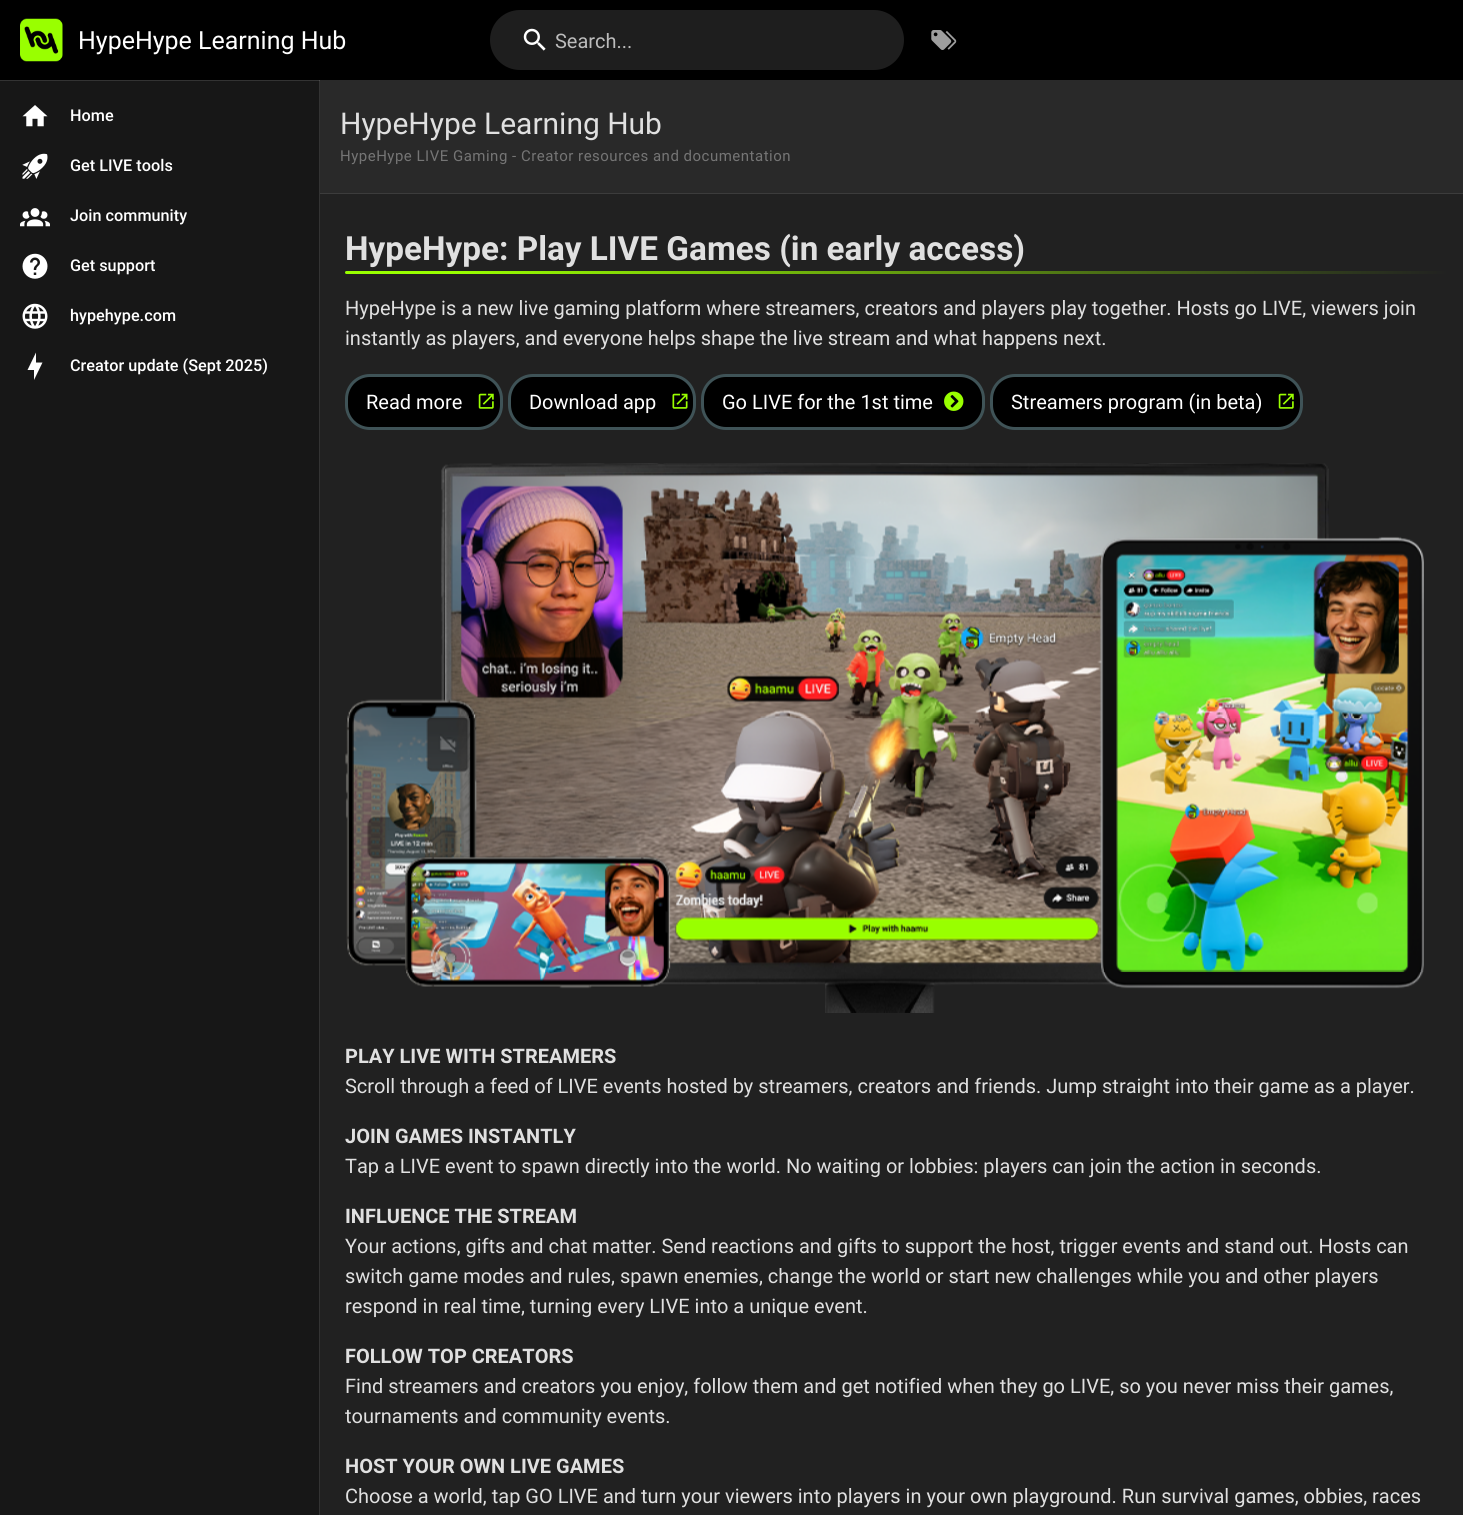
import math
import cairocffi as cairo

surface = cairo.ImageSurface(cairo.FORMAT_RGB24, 1463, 1515)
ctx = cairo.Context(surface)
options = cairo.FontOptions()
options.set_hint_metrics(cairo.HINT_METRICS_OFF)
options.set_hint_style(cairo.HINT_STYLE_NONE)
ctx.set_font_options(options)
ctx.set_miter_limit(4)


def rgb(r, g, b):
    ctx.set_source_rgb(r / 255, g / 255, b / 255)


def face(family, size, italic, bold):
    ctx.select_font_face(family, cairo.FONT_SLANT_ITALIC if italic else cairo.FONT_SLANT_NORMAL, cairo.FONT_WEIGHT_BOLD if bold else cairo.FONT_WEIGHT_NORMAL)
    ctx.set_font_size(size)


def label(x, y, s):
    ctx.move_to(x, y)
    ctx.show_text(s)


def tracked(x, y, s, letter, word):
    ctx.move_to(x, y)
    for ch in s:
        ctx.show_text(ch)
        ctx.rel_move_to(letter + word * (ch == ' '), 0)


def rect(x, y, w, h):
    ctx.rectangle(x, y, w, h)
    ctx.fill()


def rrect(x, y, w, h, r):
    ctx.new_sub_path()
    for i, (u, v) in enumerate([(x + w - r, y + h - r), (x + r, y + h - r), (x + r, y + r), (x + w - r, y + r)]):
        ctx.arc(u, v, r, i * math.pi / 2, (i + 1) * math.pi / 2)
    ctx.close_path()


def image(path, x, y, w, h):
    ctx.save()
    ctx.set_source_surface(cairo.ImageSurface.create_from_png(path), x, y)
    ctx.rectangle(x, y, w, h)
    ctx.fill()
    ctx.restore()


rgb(33, 33, 33)
ctx.paint()
rgb(0, 0, 0)
rect(0, 0, 1463, 80)
image('image0.png', 20, 18, 43, 44)
face('Roboto', 25, 0, 0)
rgb(255, 255, 255)
label(78, 49, 'HypeHype Learning Hub')
rgb(30, 30, 30)
rrect(490, 10, 414, 60, 30)
ctx.fill()
image('image1.png', 523, 28, 23, 23)
face('Roboto', 20, 0, 0)
rgb(188, 188, 188)
label(555, 48, 'Search...')
image('image2.png', 931, 30, 26, 20)
rgb(23, 23, 23)
rect(0, 81, 319, 1434)
rgb(51, 51, 51)
rect(319, 80, 1, 1435)
rect(0, 80, 320, 1)
rgb(75, 75, 75)
rect(319, 80, 1, 1)
image('image3.png', 22, 105, 26, 22)
face('Roboto Medium', 16.25, 0, 0)
rgb(255, 255, 255)
label(70, 121, 'Home')
image('image4.png', 22, 153, 26, 26)
label(70, 171, 'Get LIVE tools')
image('image5.png', 20, 208, 30, 19)
label(70, 221, 'Join community')
image('image6.png', 22, 253, 26, 26)
label(70, 271, 'Get support')
image('image7.png', 22, 303, 26, 26)
label(70, 321, 'hypehype.com')
ctx.new_path()
ctx.move_to(34, 370)
ctx.line_to(27.5, 370)
ctx.line_to(36, 352.5)
ctx.line_to(36, 362.5)
ctx.line_to(42.5, 362.5)
ctx.line_to(34, 380)
ctx.close_path()
ctx.fill()
label(70, 371, 'Creator update (Sept 2025)')
rgb(41, 41, 41)
rect(320, 80, 1143, 113)
face('Roboto', 30, 0, 0)
rgb(224, 224, 224)
label(340, 134, 'HypeHype Learning Hub')
face('Roboto', 15, 0, 0)
rgb(117, 117, 117)
tracked(340, 161, 'HypeHype LIVE Gaming - Creator resources and documentation', 0.5, 0)
rgb(60, 60, 60)
rect(320, 193, 1143, 1)
face('Roboto', 33.3, 0, 1)
rgb(224, 224, 224)
label(345, 260, 'HypeHype: Play LIVE Games (in early access)')
gradient = cairo.LinearGradient(345, 273, 1449, 272)
gradient.add_color_stop_rgba(0.1, 0.6, 1, 0, 1)
gradient.add_color_stop_rgba(1, 0.129, 0.129, 0.129, 1)
ctx.set_source(gradient)
rrect(345, 271, 1104, 3, 1.5)
ctx.fill()
face('Roboto', 20, 0, 0)
rgb(224, 224, 224)
label(345, 315, 'HypeHype is a new live gaming platform where streamers, creators and players play together. Hosts go LIVE, viewers join')
label(345, 345, 'instantly as players, and everyone helps shape the live stream and what happens next.')
rgb(0, 0, 0)
rrect(346.5, 375.5, 155, 53, 23.5)
ctx.fill_preserve()
rgb(63, 83, 87)
ctx.set_line_width(3)
ctx.stroke()
rgb(255, 255, 255)
label(366, 409, 'Read more')
image('image8.png', 478, 393, 16, 16)
rgb(0, 0, 0)
rrect(509.5, 375.5, 185, 53, 23.5)
ctx.fill_preserve()
rgb(63, 83, 87)
ctx.stroke()
rgb(255, 255, 255)
label(529, 409, 'Download app')
image('image9.png', 672, 393, 16, 16)
rgb(0, 0, 0)
rrect(702.5, 375.5, 281, 53, 23.5)
ctx.fill_preserve()
rgb(63, 83, 87)
ctx.stroke()
rgb(255, 255, 255)
label(722, 409, 'Go LIVE for the 1st time')
image('image10.png', 944, 391, 20, 20)
rgb(0, 0, 0)
rrect(991.5, 375.5, 310, 53, 23.5)
ctx.fill_preserve()
rgb(63, 83, 87)
ctx.stroke()
rgb(255, 255, 255)
label(1011, 409, 'Streamers program (in beta)')
image('image8.png', 1278, 393, 16, 16)
image('image11.png', 345, 463, 1079, 550)
face('Roboto', 20, 0, 1)
rgb(224, 224, 224)
label(345, 1063, 'PLAY LIVE WITH STREAMERS')
face('Roboto', 20, 0, 0)
label(345, 1093, 'Scroll through a feed of LIVE events hosted by streamers, creators and friends. Jump straight into their game as a player.')
face('Roboto', 20, 0, 1)
label(345, 1143, 'JOIN GAMES INSTANTLY')
face('Roboto', 20, 0, 0)
label(345, 1173, 'Tap a LIVE event to spawn directly into the world. No waiting or lobbies: players can join the action in seconds.')
face('Roboto', 20, 0, 1)
label(345, 1223, 'INFLUENCE THE STREAM')
face('Roboto', 20, 0, 0)
label(345, 1253, 'Your actions, gifts and chat matter. Send reactions and gifts to support the host, trigger events and stand out. Hosts can')
label(345, 1283, 'switch game modes and rules, spawn enemies, change the world or start new challenges while you and other players')
label(345, 1313, 'respond in real time, turning every LIVE into a unique event.')
face('Roboto', 20, 0, 1)
label(345, 1363, 'FOLLOW TOP CREATORS')
face('Roboto', 20, 0, 0)
label(345, 1393, 'Find streamers and creators you enjoy, follow them and get notified when they go LIVE, so you never miss their games,')
label(345, 1423, 'tournaments and community events.')
face('Roboto', 20, 0, 1)
label(345, 1473, 'HOST YOUR OWN LIVE GAMES')
face('Roboto', 20, 0, 0)
label(345, 1503, 'Choose a world, tap GO LIVE and turn your viewers into players in your own playground. Run survival games, obbies, races')
surface.write_to_png('render.png')
